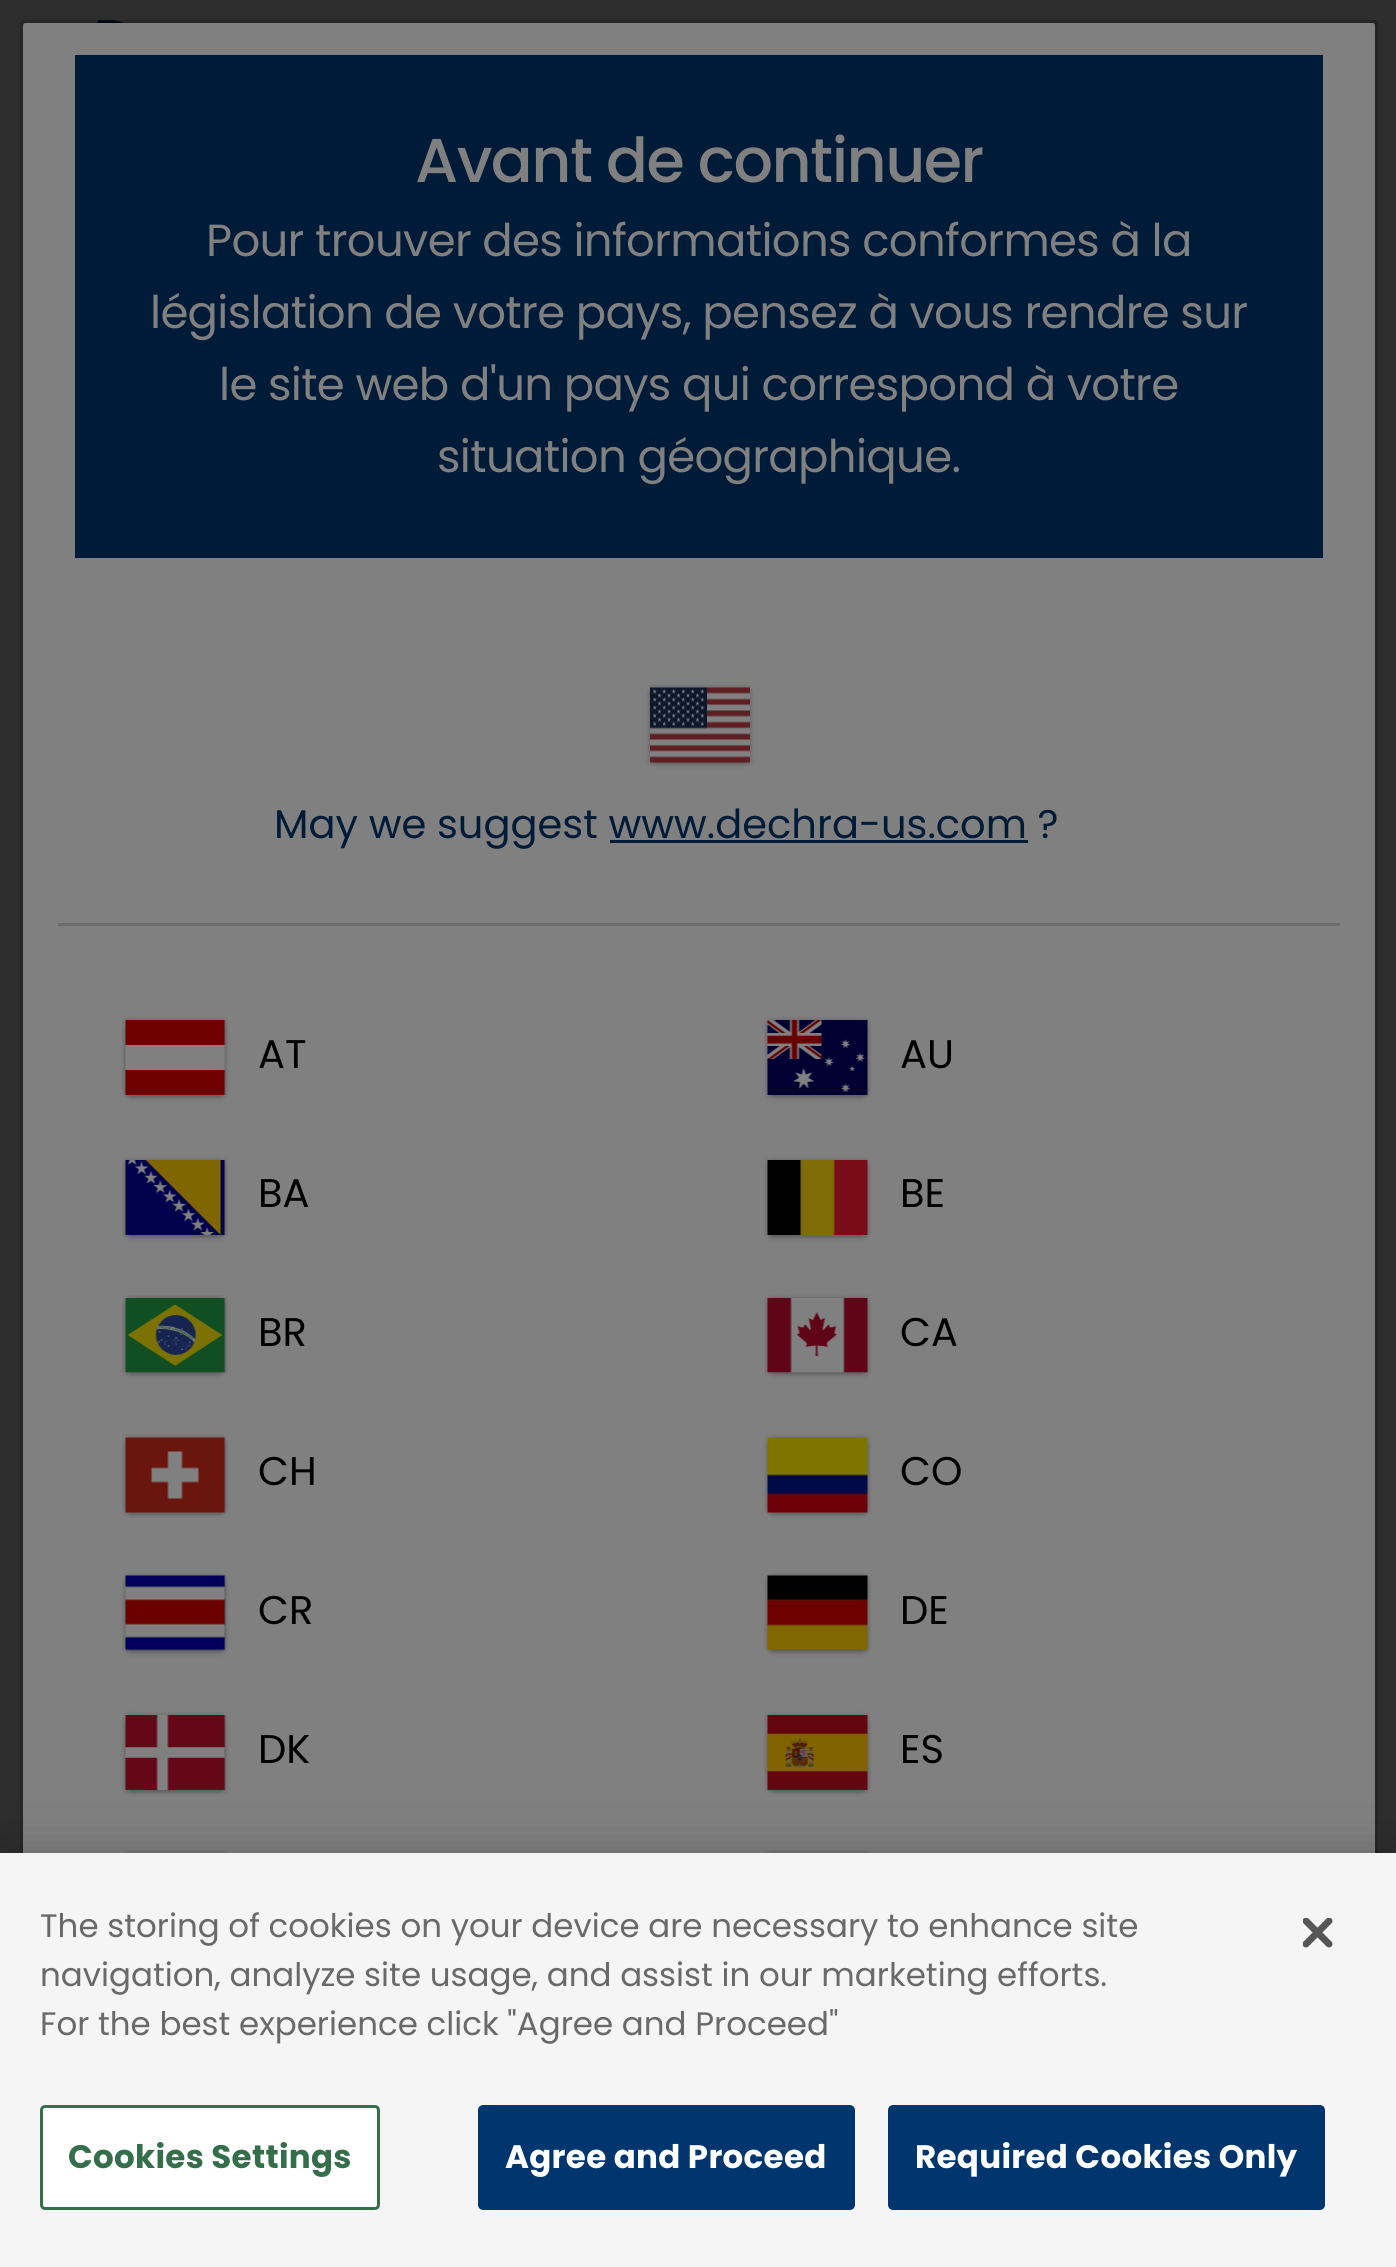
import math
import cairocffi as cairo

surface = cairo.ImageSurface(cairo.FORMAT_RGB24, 1396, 2267)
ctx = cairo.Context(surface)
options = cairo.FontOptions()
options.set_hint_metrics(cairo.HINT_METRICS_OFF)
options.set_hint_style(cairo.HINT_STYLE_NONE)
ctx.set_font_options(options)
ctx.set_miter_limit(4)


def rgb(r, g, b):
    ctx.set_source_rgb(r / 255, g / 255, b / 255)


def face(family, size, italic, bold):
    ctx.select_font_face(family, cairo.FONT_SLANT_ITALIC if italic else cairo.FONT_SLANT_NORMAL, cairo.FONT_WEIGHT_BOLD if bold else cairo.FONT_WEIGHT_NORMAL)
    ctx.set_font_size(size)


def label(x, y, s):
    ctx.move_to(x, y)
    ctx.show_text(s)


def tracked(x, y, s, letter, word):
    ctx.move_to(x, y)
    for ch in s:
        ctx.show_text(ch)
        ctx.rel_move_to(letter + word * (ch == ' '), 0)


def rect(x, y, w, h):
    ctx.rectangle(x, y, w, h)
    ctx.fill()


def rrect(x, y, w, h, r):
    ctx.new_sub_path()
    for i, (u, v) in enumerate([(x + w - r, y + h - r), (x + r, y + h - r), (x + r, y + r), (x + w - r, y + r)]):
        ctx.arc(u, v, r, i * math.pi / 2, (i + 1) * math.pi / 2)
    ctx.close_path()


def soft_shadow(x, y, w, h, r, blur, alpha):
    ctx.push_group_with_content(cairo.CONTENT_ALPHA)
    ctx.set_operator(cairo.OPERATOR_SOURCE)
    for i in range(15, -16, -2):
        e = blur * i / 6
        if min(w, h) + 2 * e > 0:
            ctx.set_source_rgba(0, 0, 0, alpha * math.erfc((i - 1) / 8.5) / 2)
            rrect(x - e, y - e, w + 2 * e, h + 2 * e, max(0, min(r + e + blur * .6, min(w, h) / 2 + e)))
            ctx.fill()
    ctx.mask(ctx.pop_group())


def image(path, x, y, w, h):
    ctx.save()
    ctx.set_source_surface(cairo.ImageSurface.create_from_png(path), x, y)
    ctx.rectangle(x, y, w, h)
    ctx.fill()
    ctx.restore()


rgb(45, 45, 45)
ctx.paint()
image('image0.png', 97, 20, 27, 3)
rgb(128, 128, 128)
ctx.new_path()
ctx.move_to(25.5, 23)
ctx.line_to(1372.5, 23)
ctx.curve_to(1374, 23, 1375, 24, 1375, 25.5)
ctx.line_to(1375, 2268)
ctx.line_to(23, 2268)
ctx.line_to(23, 25.5)
ctx.curve_to(23, 24, 24, 23, 25.5, 23)
ctx.close_path()
ctx.fill()
rrect(21.5, 21.5, 1355, 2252, 3.5)
ctx.set_source_rgba(0, 0, 0, 0.15)
ctx.set_line_width(3)
ctx.stroke()
rgb(0, 27, 55)
rect(75, 55, 1248, 503)
face('Poppins Medium', 61.9, 0, 0)
rgb(128, 128, 128)
tracked(415, 182, 'Avant de continuer', -1.5, 0)
face('Poppins', 45, 0, 0)
tracked(206, 256, 'Pour trouver des informations conformes à la', -0.68, 0)
tracked(150, 328, 'législation de votre pays, pensez à vous rendre sur', -0.68, 0)
tracked(219, 400, 'le site web d\'un pays qui correspond à votre', -0.68, 0)
tracked(437, 472, 'situation géographique.', -0.68, 0)
rgb(0, 0, 0)
soft_shadow(655, 695, 90, 65, 0, 4, 1)
image('image1.png', 647, 684, 106, 82)
face('Poppins', 40, 0, 0)
rgb(0, 27, 55)
label(274, 838, 'May we suggest www.dechra-us.com ?')
rect(610, 840, 418, 3)
rgb(109, 109, 109)
rect(58, 923, 1282, 3)
rgb(0, 0, 0)
soft_shadow(130, 1028, 90, 65, 0, 4, 1)
image('image2.png', 122, 1016, 107, 82)
rgb(0, 0, 0)
label(258, 1068, 'AT')
rgb(0, 0, 0)
soft_shadow(773, 1028, 90, 65, 0, 4, 1)
image('image3.png', 764, 1016, 107, 82)
rgb(0, 0, 0)
label(900, 1068, 'AU')
rgb(0, 0, 0)
soft_shadow(130, 1168, 90, 65, 0, 4, 1)
image('image4.png', 122, 1156, 106, 82)
rgb(0, 0, 0)
label(258, 1207, 'BA')
rgb(0, 0, 0)
soft_shadow(773, 1168, 90, 65, 0, 4, 1)
image('image5.png', 764, 1156, 107, 82)
rgb(0, 0, 0)
label(900, 1207, 'BE')
rgb(0, 0, 0)
soft_shadow(130, 1305, 90, 65, 0, 4, 1)
image('image6.png', 122, 1295, 106, 81)
rgb(0, 0, 0)
label(258, 1346, 'BR')
rgb(0, 0, 0)
soft_shadow(773, 1305, 90, 65, 0, 4, 1)
image('image7.png', 764, 1294, 107, 82)
rgb(0, 0, 0)
label(900, 1346, 'CA')
rgb(0, 0, 0)
soft_shadow(130, 1445, 90, 65, 0, 4, 1)
image('image8.png', 122, 1434, 106, 82)
rgb(0, 0, 0)
label(258, 1485, 'CH')
rgb(0, 0, 0)
soft_shadow(773, 1445, 90, 65, 0, 4, 1)
image('image9.png', 764, 1434, 107, 82)
rgb(0, 0, 0)
label(900, 1485, 'CO')
rgb(0, 0, 0)
soft_shadow(130, 1583, 90, 65, 0, 4, 1)
image('image10.png', 122, 1572, 107, 81)
rgb(0, 0, 0)
label(258, 1624, 'CR')
rgb(0, 0, 0)
soft_shadow(773, 1583, 90, 65, 0, 4, 1)
image('image11.png', 764, 1572, 107, 81)
rgb(0, 0, 0)
label(900, 1624, 'DE')
rgb(0, 0, 0)
soft_shadow(130, 1723, 90, 65, 0, 4, 1)
image('image12.png', 122, 1711, 107, 82)
rgb(0, 0, 0)
label(258, 1763, 'DK')
rgb(0, 0, 0)
soft_shadow(773, 1723, 90, 65, 0, 4, 1)
image('image13.png', 764, 1711, 107, 82)
rgb(0, 0, 0)
label(900, 1763, 'ES')
image('image14.png', 122, 1850, 106, 3)
image('image15.png', 764, 1849, 107, 4)
rgb(0, 0, 0)
soft_shadow(0, 1853, 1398, 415, 0, 22.5, 0.2)
rgb(245, 245, 245)
rect(0, 1853, 1396, 414)
face('Poppins', 32.5, 0, 0)
rgb(105, 105, 105)
label(40, 1937, 'The storing of cookies on your device are necessary to enhance site')
label(40, 1986, 'navigation, analyze site usage, and assist in our marketing efforts.')
label(40, 2035, 'For the best experience click "Agree and Proceed"')
rgb(255, 255, 255)
rrect(41.5, 2106.5, 337, 102, 3.5)
ctx.fill_preserve()
rgb(52, 110, 74)
ctx.stroke()
face('Poppins', 32.5, 0, 1)
tracked(68, 2168, 'Cookies Settings', 0.3, 0)
rgb(0, 54, 109)
rrect(479.5, 2106.5, 374, 102, 3.5)
ctx.fill_preserve()
ctx.stroke()
rgb(255, 255, 255)
tracked(505, 2168, 'Agree and Proceed', 0.3, 0)
rgb(0, 54, 109)
rrect(889.5, 2106.5, 434, 102, 3.5)
ctx.fill_preserve()
ctx.stroke()
rgb(255, 255, 255)
tracked(915, 2168, 'Required Cookies Only', 0.3, 0)
image('image16.png', 1303, 1918, 30, 30)
surface.write_to_png('render.png')
